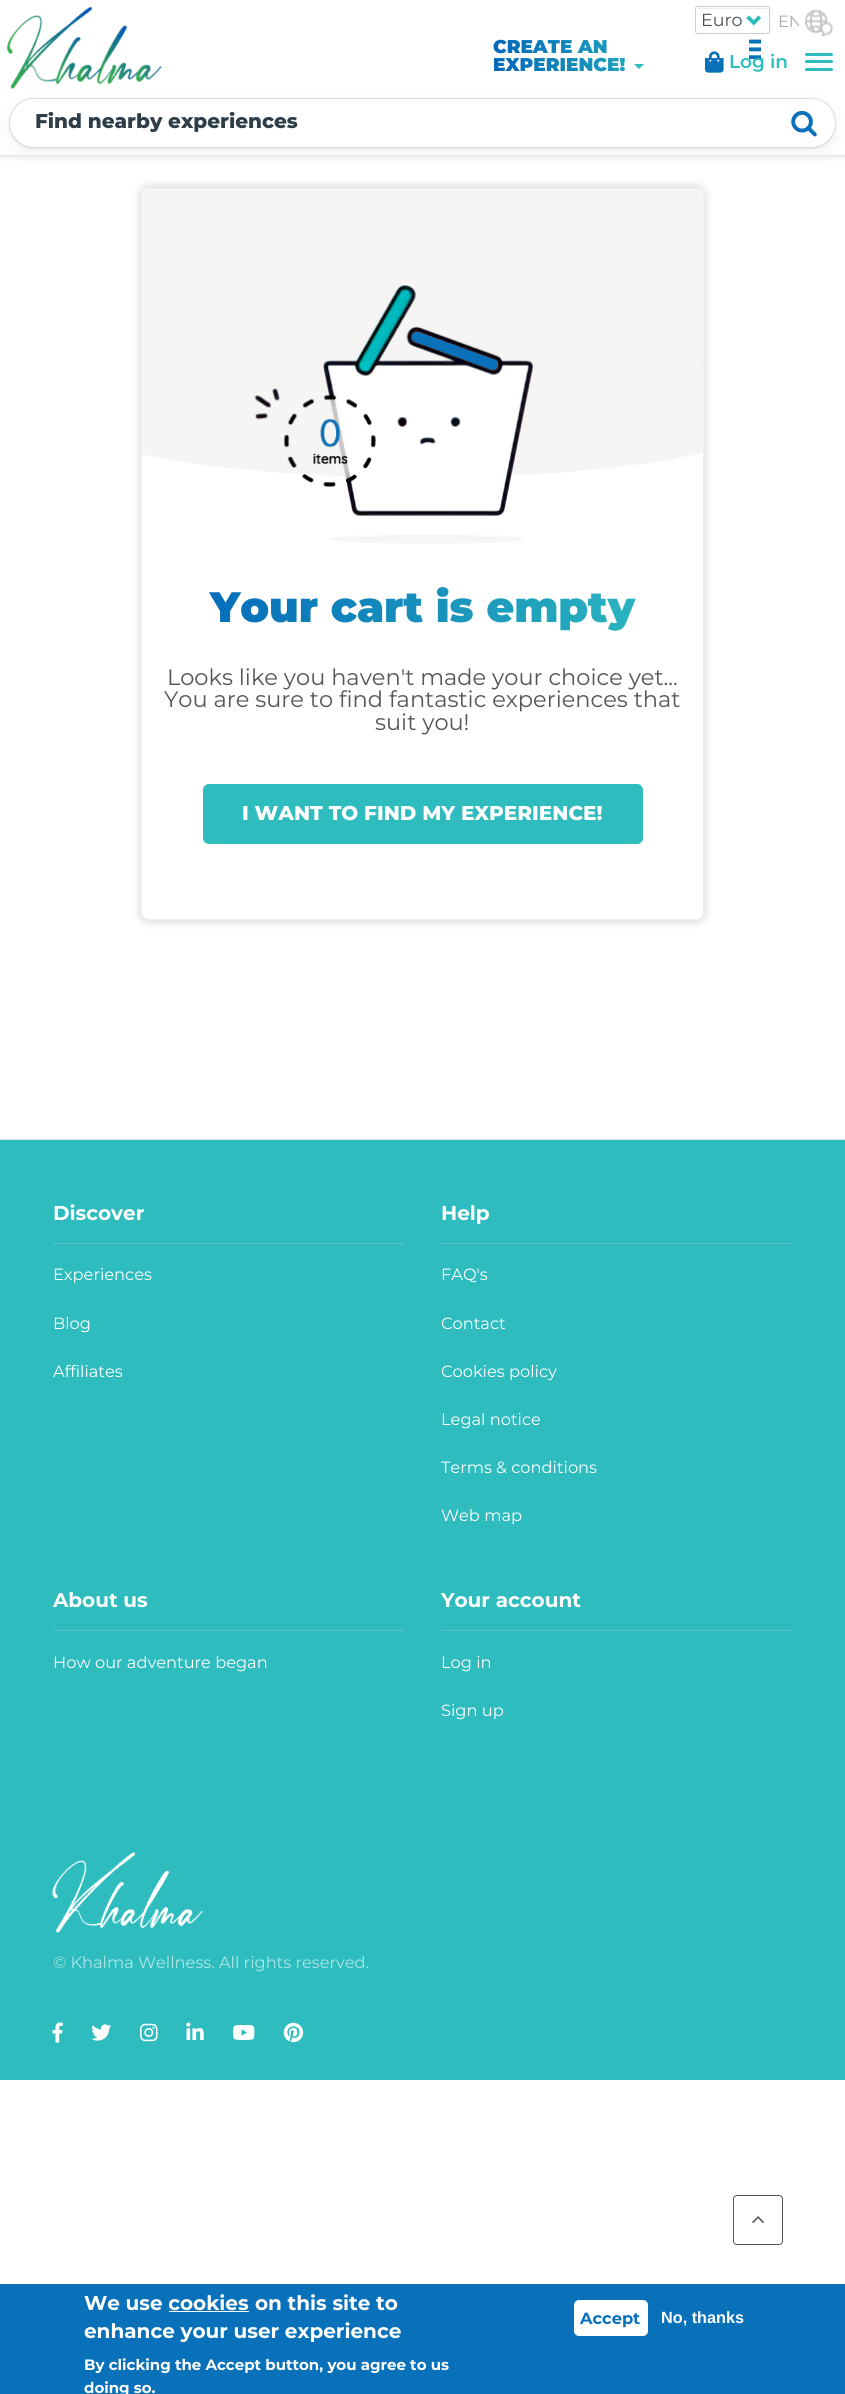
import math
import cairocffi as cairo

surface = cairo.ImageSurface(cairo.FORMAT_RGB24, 845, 2394)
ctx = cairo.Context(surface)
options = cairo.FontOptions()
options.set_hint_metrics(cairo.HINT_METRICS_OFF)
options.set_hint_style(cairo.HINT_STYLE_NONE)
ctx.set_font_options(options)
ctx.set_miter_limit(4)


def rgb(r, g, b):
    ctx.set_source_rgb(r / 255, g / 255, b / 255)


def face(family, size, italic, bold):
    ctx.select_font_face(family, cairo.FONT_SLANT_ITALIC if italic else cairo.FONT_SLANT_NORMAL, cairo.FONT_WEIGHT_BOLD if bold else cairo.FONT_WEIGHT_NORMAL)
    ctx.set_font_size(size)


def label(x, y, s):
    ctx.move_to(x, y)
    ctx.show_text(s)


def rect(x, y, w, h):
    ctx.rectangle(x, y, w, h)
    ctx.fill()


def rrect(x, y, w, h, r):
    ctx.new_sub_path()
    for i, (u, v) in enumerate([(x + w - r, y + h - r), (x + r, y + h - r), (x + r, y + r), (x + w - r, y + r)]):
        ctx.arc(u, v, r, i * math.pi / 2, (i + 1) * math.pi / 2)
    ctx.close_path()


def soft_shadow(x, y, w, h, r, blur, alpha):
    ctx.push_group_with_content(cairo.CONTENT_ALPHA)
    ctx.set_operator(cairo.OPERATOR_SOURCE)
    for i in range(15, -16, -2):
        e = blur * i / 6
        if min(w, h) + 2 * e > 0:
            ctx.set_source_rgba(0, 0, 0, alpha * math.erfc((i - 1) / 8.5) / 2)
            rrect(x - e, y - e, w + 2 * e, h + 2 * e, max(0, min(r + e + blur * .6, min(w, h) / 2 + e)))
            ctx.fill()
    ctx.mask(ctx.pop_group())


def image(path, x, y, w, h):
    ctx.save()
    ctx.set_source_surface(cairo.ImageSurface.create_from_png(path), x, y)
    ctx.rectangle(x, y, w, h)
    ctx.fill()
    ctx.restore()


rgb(255, 255, 255)
ctx.paint()
ctx.save()
ctx.rectangle(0, 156, 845, 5)
ctx.clip()
rgb(0, 0, 0)
soft_shadow(0, 0, 845, 156, 0, 5, 0.12)
ctx.restore()
rgb(231, 231, 231)
rect(0, 155, 845, 1)
rgb(236, 236, 236)
ctx.new_path()
ctx.move_to(698, 9)
ctx.line_to(768, 9)
ctx.line_to(769, 10)
ctx.curve_to(769, 9, 769, 8, 768, 8)
ctx.line_to(697, 8)
ctx.line_to(696, 10)
ctx.curve_to(696, 9, 697, 9, 698, 9)
ctx.close_path()
ctx.fill()
rrect(695.5, 6.5, 74, 27, 2)
rgb(201, 204, 215)
ctx.set_line_width(1)
ctx.stroke()
face('Montserrat', 17.5, 0, 0)
rgb(73, 80, 87)
label(701, 26, 'Euro')
image('image0.png', 746, 15, 15, 11)
ctx.save()
ctx.new_path()
ctx.move_to(784, 9)
ctx.line_to(799, 9)
ctx.line_to(799, 33)
ctx.line_to(784, 33)
ctx.curve_to(780.5, 33, 778, 30.5, 778, 27)
ctx.line_to(778, 15)
ctx.curve_to(778, 11.5, 780.5, 9, 784, 9)
ctx.close_path()
ctx.clip()
face('Montserrat', 16.25, 0, 0)
rgb(171, 171, 171)
label(778, 27, 'EN')
ctx.restore()
image('image1.png', 805, 9, 28, 28)
face('Montserrat Black', 18.5, 0, 0)
gradient = cairo.LinearGradient(486, 44, 686, 44)
gradient.add_color_stop_rgba(0, 0, 0.392, 0.725, 1)
gradient.add_color_stop_rgba(1, 0.18, 0.737, 0.749, 1)
ctx.set_source(gradient)
label(493, 53, 'CREATE AN')
label(493, 71, 'EXPERIENCE!')
rgb(46, 188, 191)
ctx.new_path()
ctx.move_to(634, 64)
ctx.line_to(644, 64)
ctx.line_to(639, 69)
ctx.close_path()
ctx.fill()
image('image2.png', 705, 51, 19, 22)
image('image3.png', 749, 39, 12, 21)
image('image4.png', 6, 7, 156, 82)
face('Montserrat SemiBold', 18.5, 0, 0)
label(729, 68, 'Log in')
rgb(0, 0, 0)
soft_shadow(9, 103, 827, 50, 25, 7.5, 0.05)
soft_shadow(9, 99, 827, 50, 25, 1, 0.08)
rgb(255, 255, 255)
rrect(9.5, 98.5, 826, 49, 24.5)
ctx.fill_preserve()
rgb(221, 221, 221)
ctx.stroke()
face('Montserrat ExtraBold', 20, 0, 0)
rgb(46, 62, 72)
label(35, 128, 'Find nearby experiences')
image('image5.png', 791, 110, 26, 27)
rgb(46, 188, 191)
rrect(805, 53, 28, 3, 1.5)
ctx.fill()
rrect(805, 60, 28, 3, 1.5)
ctx.fill()
rrect(805, 68, 28, 3, 1.5)
ctx.fill()
rgb(0, 0, 0)
soft_shadow(139, 185, 567, 738, 10, 4, 0.13)
rgb(255, 255, 255)
rrect(141.5, 188.5, 562, 731, 7.5)
ctx.fill_preserve()
rgb(238, 238, 238)
ctx.stroke()
image('image6.png', 142, 189, 561, 355)
face('Montserrat Black', 42.5, 0, 0)
gradient = cairo.LinearGradient(155, 607, 690, 607)
gradient.add_color_stop_rgba(0, 0, 0.392, 0.725, 1)
gradient.add_color_stop_rgba(1, 0.18, 0.737, 0.749, 1)
ctx.set_source(gradient)
label(210, 622, 'Your cart is empty')
face('Montserrat', 22.5, 0, 0)
rgb(85, 85, 85)
label(167, 685, 'Looks like you haven\'t made your choice yet...')
label(164, 707, 'You are sure to find fantastic experiences that')
label(375, 730, 'suit you!')
rgb(46, 188, 191)
rrect(203, 784, 440, 60, 6)
ctx.fill()
face('Montserrat ExtraBold', 20, 0, 0)
rgb(255, 255, 255)
label(242, 820, 'I WANT TO FIND MY EXPERIENCE!')
rgb(46, 188, 191)
rect(0, 1140, 845, 940)
rgb(229, 229, 229)
rect(0, 1139, 845, 1)
rgb(90, 195, 198)
rect(53, 1243, 351, 1)
face('Montserrat', 20, 0, 1)
rgb(255, 255, 255)
label(53, 1220, 'Discover')
face('Montserrat', 16.25, 0, 0)
label(53, 1280, 'Experiences')
label(53, 1329, 'Blog')
label(53, 1377, 'Affiliates')
rgb(90, 195, 198)
rect(441, 1243, 352, 1)
face('Montserrat', 20, 0, 1)
rgb(255, 255, 255)
label(441, 1220, 'Help')
face('Montserrat', 16.25, 0, 0)
label(441, 1280, 'FAQ\'s')
label(441, 1329, 'Contact')
label(441, 1377, 'Cookies policy')
label(441, 1425, 'Legal notice')
label(441, 1473, 'Terms & conditions')
label(441, 1521, 'Web map')
rgb(90, 195, 198)
rect(53, 1630, 351, 1)
face('Montserrat', 20, 0, 1)
rgb(255, 255, 255)
label(53, 1607, 'About us')
face('Montserrat', 16.25, 0, 0)
label(53, 1668, 'How our adventure began')
rgb(90, 195, 198)
rect(441, 1630, 352, 1)
face('Montserrat', 20, 0, 1)
rgb(255, 255, 255)
label(441, 1607, 'Your account')
face('Montserrat', 16.25, 0, 0)
label(441, 1668, 'Log in')
label(441, 1716, 'Sign up')
image('image7.png', 52, 1852, 151, 81)
rgb(173, 229, 230)
label(53, 1968, '© Khalma Wellness. All rights reserved.')
image('image8.png', 52, 2022, 11, 21)
image('image9.png', 91, 2024, 21, 17)
image('image10.png', 140, 2023, 18, 19)
image('image11.png', 186, 2022, 18, 18)
image('image12.png', 233, 2025, 22, 15)
image('image13.png', 283, 2022, 21, 21)
rrect(733.5, 2195.5, 49, 49, 3.5)
rgb(86, 86, 86)
ctx.stroke()
image('image14.png', 752, 2216, 12, 7)
rgb(8, 113, 186)
rect(0, 2284, 845, 110)
face('Montserrat', 20, 0, 1)
rgb(255, 255, 255)
label(84, 2310, 'We use cookies')
label(255, 2310, 'on this site to')
rect(169, 2311, 80, 1)
label(84, 2338, 'enhance your user experience')
face('Montserrat', 15, 0, 1)
label(84, 2370, 'By clicking the Accept button, you agree to us')
label(84, 2393, 'doing so.')
rrect(574, 2300, 74, 36, 5)
ctx.fill()
face('Montserrat', 16.25, 0, 1)
rgb(8, 113, 186)
label(580, 2324, 'Accept')
face('Liberation Sans', 16.25, 0, 1)
rgb(255, 255, 255)
label(661, 2323, 'No, thanks')
surface.write_to_png('render.png')
